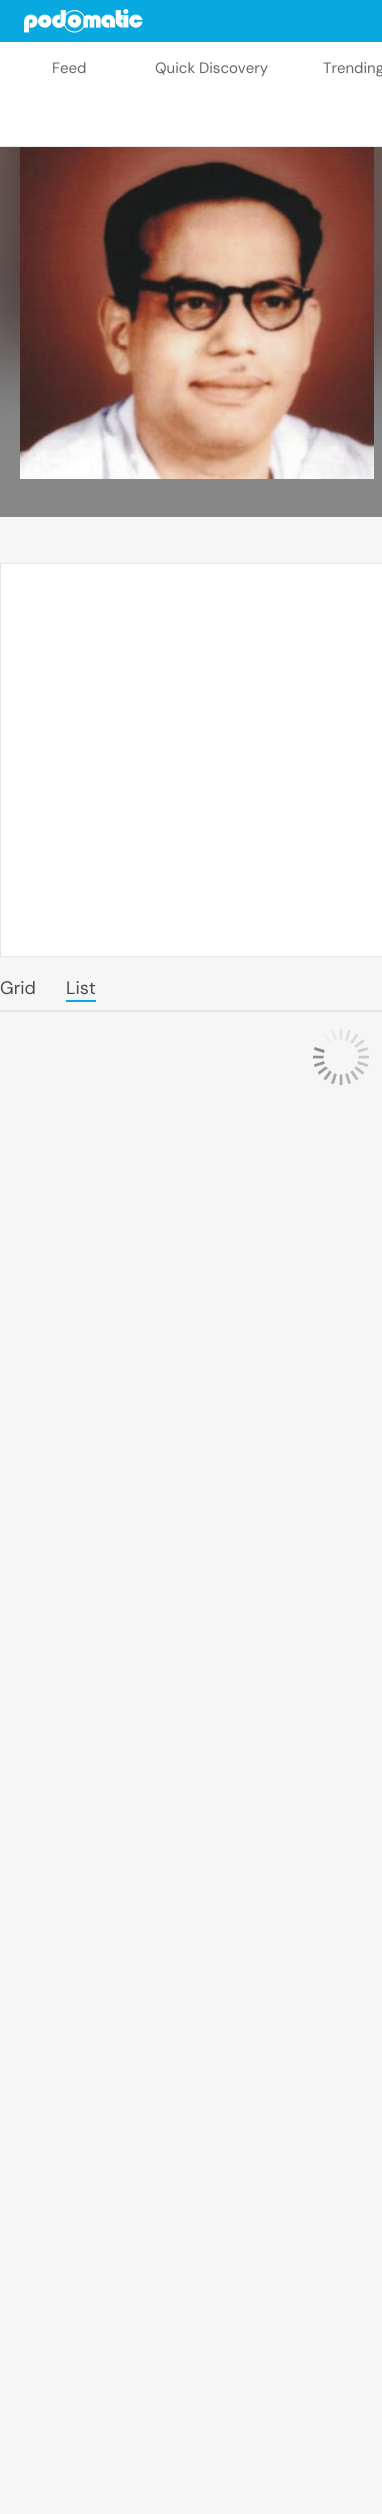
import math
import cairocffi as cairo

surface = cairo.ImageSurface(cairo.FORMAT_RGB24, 382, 2514)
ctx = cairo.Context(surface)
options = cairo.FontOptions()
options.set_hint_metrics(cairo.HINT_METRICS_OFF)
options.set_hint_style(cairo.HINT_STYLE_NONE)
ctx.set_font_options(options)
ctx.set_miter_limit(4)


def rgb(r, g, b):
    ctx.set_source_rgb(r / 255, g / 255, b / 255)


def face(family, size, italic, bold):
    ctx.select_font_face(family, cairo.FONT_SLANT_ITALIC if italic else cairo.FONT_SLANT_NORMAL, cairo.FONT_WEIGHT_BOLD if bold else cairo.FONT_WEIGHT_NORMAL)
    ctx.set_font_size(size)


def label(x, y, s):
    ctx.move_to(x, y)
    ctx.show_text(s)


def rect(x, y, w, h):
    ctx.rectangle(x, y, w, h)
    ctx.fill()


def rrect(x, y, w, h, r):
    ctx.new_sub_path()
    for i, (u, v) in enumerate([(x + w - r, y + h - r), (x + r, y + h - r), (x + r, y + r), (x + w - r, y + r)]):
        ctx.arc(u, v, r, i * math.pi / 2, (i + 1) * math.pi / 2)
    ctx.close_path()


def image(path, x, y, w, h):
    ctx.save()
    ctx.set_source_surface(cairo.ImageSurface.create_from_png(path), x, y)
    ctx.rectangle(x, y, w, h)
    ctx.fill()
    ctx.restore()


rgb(246, 246, 246)
ctx.paint()
rgb(135, 135, 135)
rect(0, 147, 382, 370)
rgb(7, 169, 224)
rect(0, 0, 382, 42)
image('image0.png', 24, 9, 119, 24)
rgb(255, 255, 255)
rect(0, 42, 382, 104)
rgb(230, 230, 230)
rect(0, 146, 382, 1)
face('DM Sans', 15, 0, 0)
rgb(102, 102, 102)
label(52, 73, 'Feed')
label(155, 73, 'Quick Discovery')
label(323, 73, 'Trending')
image('image1.png', 0, 147, 382, 295)
image('image2.png', 20, 147, 354, 332)
rgb(255, 255, 255)
rrect(0.5, 563.5, 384, 393, 1.5)
ctx.fill_preserve()
rgb(229, 229, 229)
ctx.set_line_width(1)
ctx.stroke()
face('DM Sans', 18, 0, 0)
rgb(74, 74, 74)
label(0, 994, 'Grid')
label(66, 994, 'List')
rgb(7, 169, 224)
rect(66, 1000, 30, 2)
rgb(229, 229, 229)
rrect(0, 1010, 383, 2, 1)
ctx.fill()
image('image3.png', 313, 1029, 56, 56)
surface.write_to_png('render.png')
